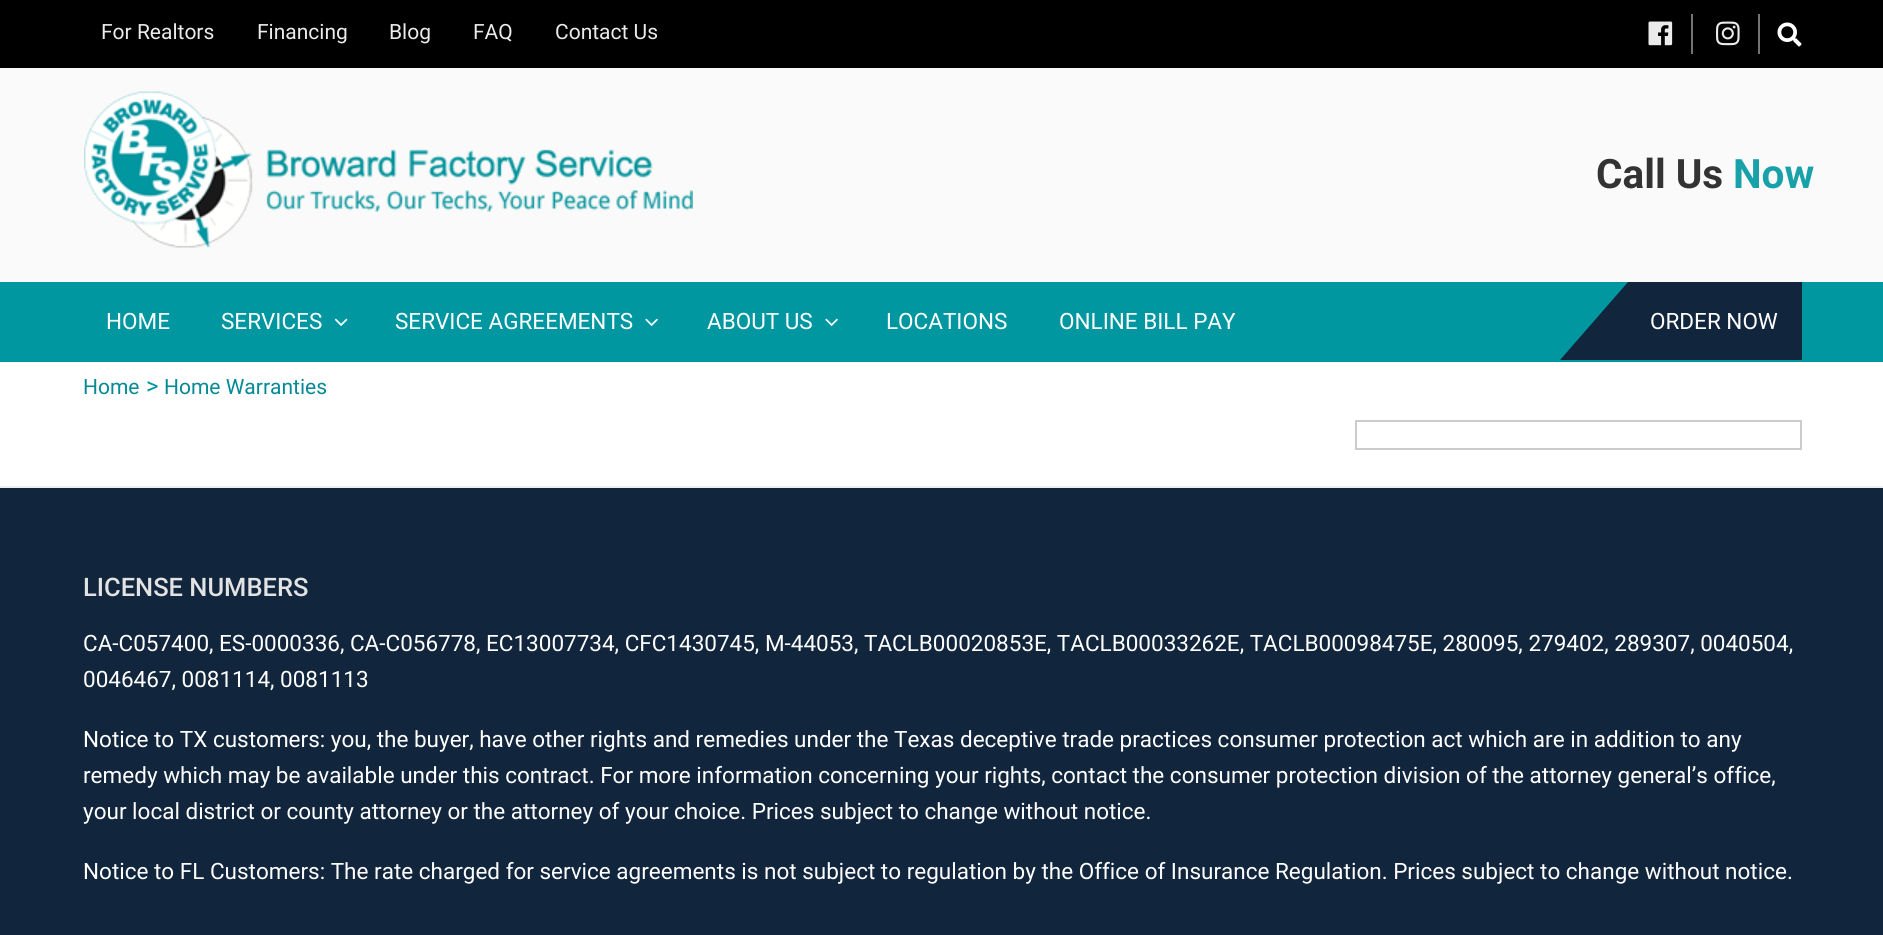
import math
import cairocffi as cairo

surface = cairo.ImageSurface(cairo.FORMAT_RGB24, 1883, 935)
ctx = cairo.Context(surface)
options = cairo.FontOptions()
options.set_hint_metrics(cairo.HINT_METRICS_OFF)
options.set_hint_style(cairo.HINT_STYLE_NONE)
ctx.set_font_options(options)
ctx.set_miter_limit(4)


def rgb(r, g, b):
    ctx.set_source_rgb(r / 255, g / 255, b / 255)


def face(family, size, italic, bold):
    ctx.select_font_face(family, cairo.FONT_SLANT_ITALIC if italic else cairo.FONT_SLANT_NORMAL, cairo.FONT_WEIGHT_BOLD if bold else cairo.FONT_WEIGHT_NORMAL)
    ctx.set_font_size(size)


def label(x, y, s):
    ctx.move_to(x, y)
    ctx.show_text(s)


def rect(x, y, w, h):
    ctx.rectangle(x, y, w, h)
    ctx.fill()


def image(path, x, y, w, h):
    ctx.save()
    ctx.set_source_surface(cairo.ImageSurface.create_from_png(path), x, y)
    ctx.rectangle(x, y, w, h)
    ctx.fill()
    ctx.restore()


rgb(255, 255, 255)
ctx.paint()
rgb(0, 0, 0)
rect(0, 0, 1883, 68)
face('Roboto', 21, 0, 0)
rgb(235, 235, 235)
label(101, 39, 'For Realtors')
label(257, 39, 'Financing')
label(389, 39, 'Blog')
label(473, 39, 'FAQ')
label(555, 39, 'Contact Us')
rgb(115, 115, 115)
rect(1691, 14, 2, 40)
image('image0.png', 1648, 21, 25, 25)
rect(1758, 14, 2, 40)
image('image1.png', 1716, 21, 24, 25)
image('image2.png', 1777, 22, 25, 25)
rgb(250, 250, 250)
rect(0, 68, 1883, 214)
image('image3.png', 84, 91, 609, 157)
face('Roboto', 40.5, 0, 1)
rgb(51, 51, 51)
label(1596, 188, 'Call Us')
rgb(25, 161, 170)
label(1733, 188, 'Now')
rgb(0, 151, 161)
rect(0, 282, 1883, 80)
face('Roboto', 22.5, 0, 0)
rgb(255, 255, 255)
label(106, 329, 'HOME')
label(221, 329, 'SERVICES')
image('image4.png', 334, 318, 14, 8)
label(395, 329, 'SERVICE AGREEMENTS')
image('image5.png', 645, 318, 13, 8)
label(707, 329, 'ABOUT US')
image('image5.png', 825, 318, 13, 8)
label(886, 329, 'LOCATIONS')
label(1059, 329, 'ONLINE BILL PAY')
rgb(17, 37, 61)
ctx.new_path()
ctx.move_to(1802, 360)
ctx.line_to(1560, 360)
ctx.line_to(1628, 282)
ctx.line_to(1802, 282)
ctx.close_path()
ctx.fill()
rgb(255, 255, 255)
label(1650, 329, 'ORDER NOW')
face('Roboto', 21, 0, 0)
rgb(4, 138, 149)
label(83, 394, 'Home')
face('Roboto', 24, 0, 0)
rgb(0, 151, 161)
label(146, 394, '>')
face('Roboto', 21, 0, 0)
rgb(4, 138, 149)
label(164, 394, 'Home Warranties')
ctx.rectangle(1356, 421, 445, 28)
rgb(204, 204, 204)
ctx.stroke()
rgb(17, 37, 61)
rect(0, 488, 1883, 447)
rgb(238, 238, 238)
rect(0, 486, 1883, 2)
face('Roboto Medium', 25.5, 0, 0)
rgb(227, 227, 227)
label(83, 596, 'LICENSE NUMBERS')
face('Roboto', 22.5, 0, 0)
rgb(255, 255, 255)
label(83, 651, 'CA-C057400, ES-0000336, CA-C056778, EC13007734, CFC1430745, M-44053, TACLB00020853E, TACLB00033262E, TACLB00098475E, 280095, 279402, 289307, 0040504,')
label(83, 687, '0046467, 0081114, 0081113')
label(83, 747, 'Notice to TX customers: you, the buyer, have other rights and remedies under the Texas deceptive trade practices consumer protection act which are in addition to any')
label(83, 783, 'remedy which may be available under this contract. For more information concerning your rights, contact the consumer protection division of the attorney general’s office,')
label(83, 819, 'your local district or county attorney or the attorney of your choice. Prices subject to change without notice.')
label(83, 879, 'Notice to FL Customers: The rate charged for service agreements is not subject to regulation by the Office of Insurance Regulation. Prices subject to change without notice.')
surface.write_to_png('render.png')
